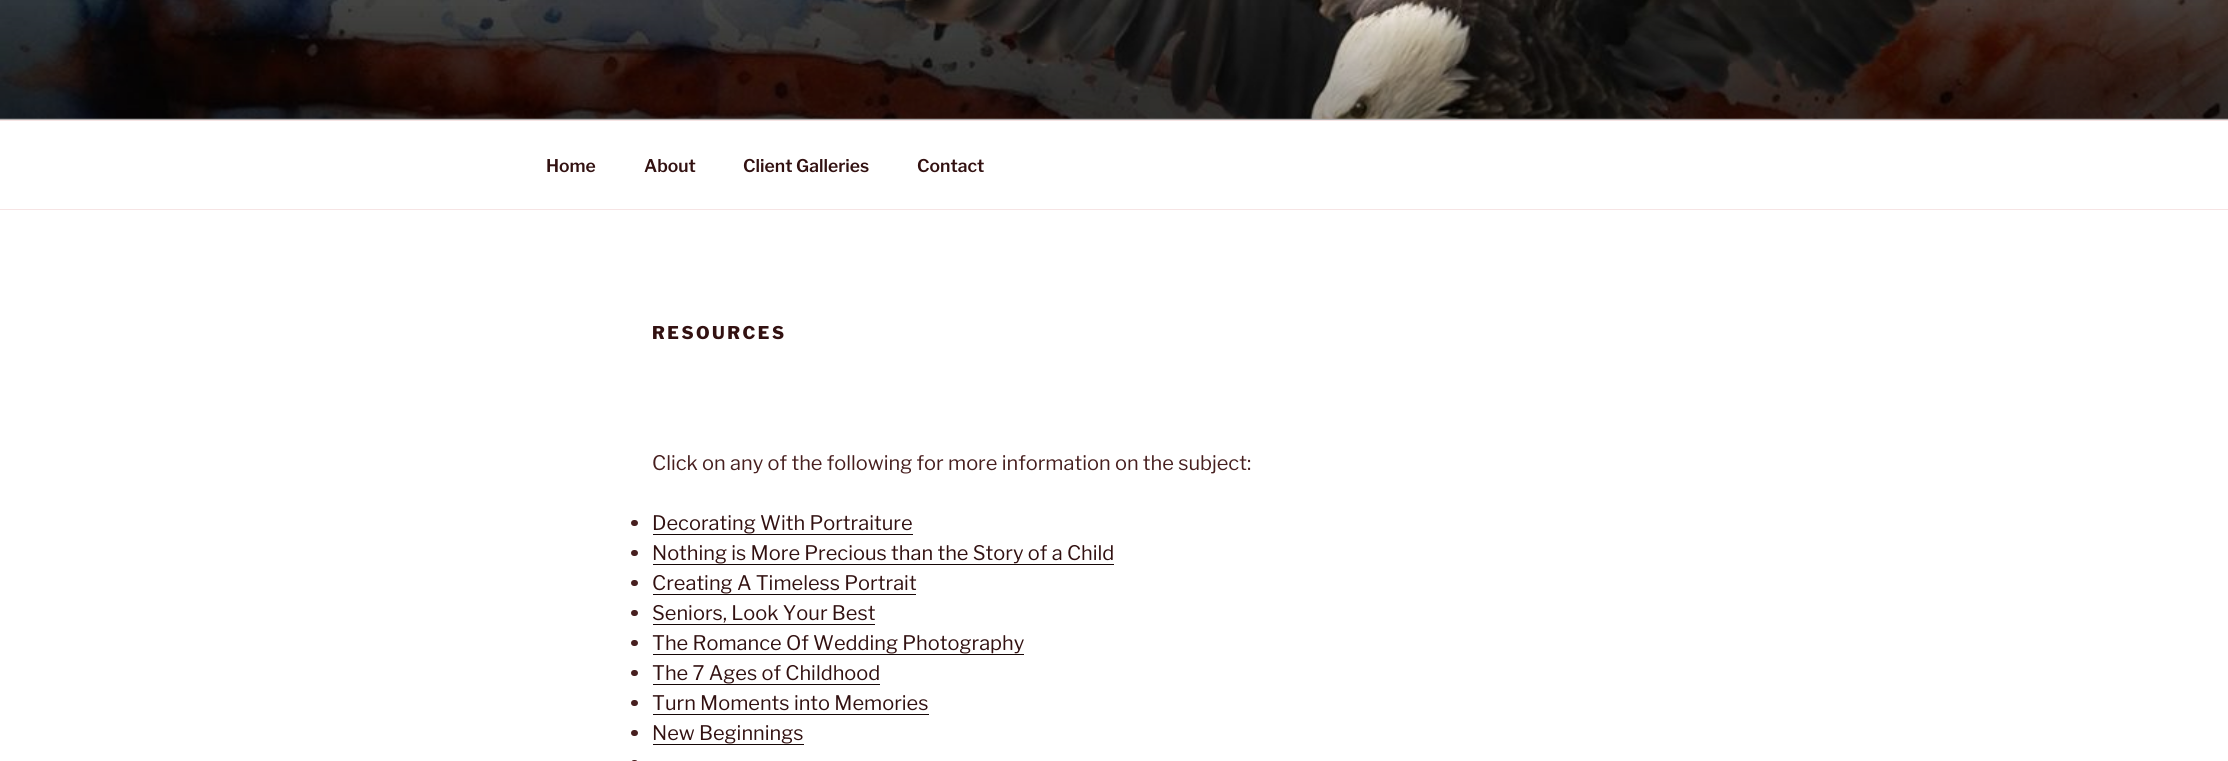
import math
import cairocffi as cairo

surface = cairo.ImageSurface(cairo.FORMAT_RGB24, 2228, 761)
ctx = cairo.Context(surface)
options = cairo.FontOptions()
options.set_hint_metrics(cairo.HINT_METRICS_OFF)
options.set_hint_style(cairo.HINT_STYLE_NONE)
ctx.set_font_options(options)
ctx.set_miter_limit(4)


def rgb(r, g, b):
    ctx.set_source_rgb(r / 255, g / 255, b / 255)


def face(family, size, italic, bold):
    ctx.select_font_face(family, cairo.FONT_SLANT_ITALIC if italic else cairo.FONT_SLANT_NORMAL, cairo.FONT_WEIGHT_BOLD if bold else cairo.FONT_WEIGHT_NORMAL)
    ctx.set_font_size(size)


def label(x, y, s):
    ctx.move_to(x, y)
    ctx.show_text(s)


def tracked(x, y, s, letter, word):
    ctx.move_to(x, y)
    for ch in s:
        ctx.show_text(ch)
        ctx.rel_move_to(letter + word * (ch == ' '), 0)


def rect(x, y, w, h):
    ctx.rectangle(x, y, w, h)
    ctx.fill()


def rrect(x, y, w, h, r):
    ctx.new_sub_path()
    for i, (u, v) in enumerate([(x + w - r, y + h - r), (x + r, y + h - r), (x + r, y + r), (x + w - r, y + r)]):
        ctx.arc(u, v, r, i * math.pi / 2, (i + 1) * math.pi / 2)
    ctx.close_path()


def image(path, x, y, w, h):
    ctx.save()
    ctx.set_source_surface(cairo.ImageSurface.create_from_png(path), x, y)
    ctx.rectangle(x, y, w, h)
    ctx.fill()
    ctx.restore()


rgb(255, 255, 255)
ctx.paint()
rgb(252, 247, 247)
rect(0, 118, 2228, 2)
image('image0.png', 0, 0, 2228, 119)
gradient = cairo.LinearGradient(1114, 0, 1114, 120)
gradient.add_color_stop_rgba(0, 0, 0, 0, 0)
gradient.add_color_stop_rgba(0.75, 0, 0, 0, 0.3)
gradient.add_color_stop_rgba(1, 0, 0, 0, 0.3)
ctx.set_source(gradient)
rect(0, 6, 2228, 114)
rgb(246, 228, 228)
rect(0, 120, 2228, 1)
rect(0, 209, 2228, 1)
face('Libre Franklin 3 Thin', 17.5, 0, 0)
rgb(50, 17, 17)
label(546, 172, 'Home')
label(644, 172, 'About')
label(743, 172, 'Client Galleries')
label(917, 172, 'Contact')
face('Libre Franklin Thin', 17.5, 0, 0)
tracked(652, 339, 'RESOURCES', 2.5, 0)
face('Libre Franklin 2 Thin', 20, 0, 0)
rgb(71, 31, 31)
label(652, 470, 'Click on any of the following for more information on the subject:')
rrect(631, 520, 7, 6, 3)
ctx.fill()
rgb(50, 17, 17)
label(652, 530, 'Decorating With Portraiture')
rgb(23, 8, 8)
rect(653, 534, 260, 1)
rgb(71, 31, 31)
rrect(631, 550, 7, 6, 3)
ctx.fill()
rgb(50, 17, 17)
label(652, 560, 'Nothing is More Precious than the Story of a Child')
rgb(23, 8, 8)
rect(653, 564, 461, 1)
rgb(71, 31, 31)
rrect(631, 580, 7, 6, 3)
ctx.fill()
rgb(50, 17, 17)
label(652, 590, 'Creating A Timeless Portrait')
rgb(23, 8, 8)
rect(653, 594, 263, 1)
rgb(71, 31, 31)
rrect(631, 610, 7, 6, 3)
ctx.fill()
rgb(50, 17, 17)
label(652, 620, 'Seniors, Look Your Best')
rgb(23, 8, 8)
rect(653, 624, 222, 1)
rgb(71, 31, 31)
rrect(631, 640, 7, 6, 3)
ctx.fill()
rgb(50, 17, 17)
label(652, 650, 'The Romance Of Wedding Photography')
rgb(23, 8, 8)
rect(653, 654, 371, 1)
rgb(71, 31, 31)
rrect(631, 670, 7, 6, 3)
ctx.fill()
rgb(50, 17, 17)
label(652, 680, 'The 7 Ages of Childhood')
rgb(23, 8, 8)
rect(653, 684, 227, 1)
rgb(71, 31, 31)
rrect(631, 700, 7, 6, 3)
ctx.fill()
rgb(50, 17, 17)
label(652, 710, 'Turn Moments into Memories')
rgb(23, 8, 8)
rect(653, 714, 276, 1)
rgb(71, 31, 31)
rrect(631, 730, 7, 6, 3)
ctx.fill()
rgb(50, 17, 17)
label(652, 740, 'New Beginnings')
rgb(23, 8, 8)
rect(653, 744, 151, 1)
rgb(71, 31, 31)
rrect(631, 760, 7, 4, 3)
ctx.fill()
surface.write_to_png('render.png')
